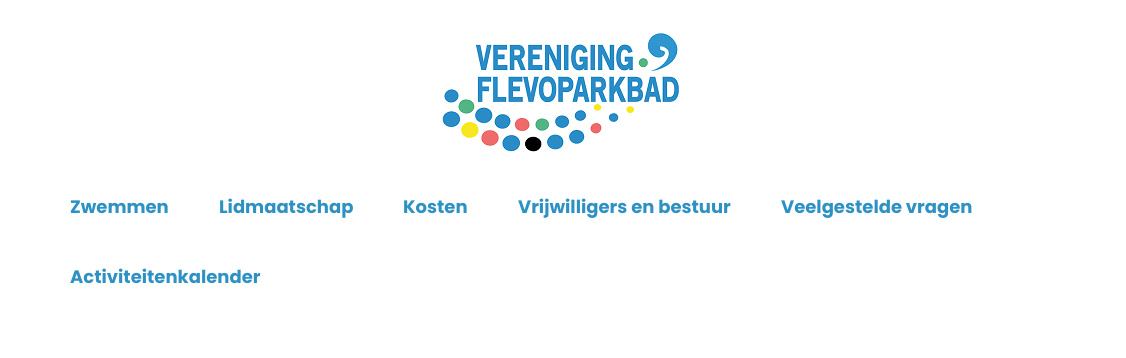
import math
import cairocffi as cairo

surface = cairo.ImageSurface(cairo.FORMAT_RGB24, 1126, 358)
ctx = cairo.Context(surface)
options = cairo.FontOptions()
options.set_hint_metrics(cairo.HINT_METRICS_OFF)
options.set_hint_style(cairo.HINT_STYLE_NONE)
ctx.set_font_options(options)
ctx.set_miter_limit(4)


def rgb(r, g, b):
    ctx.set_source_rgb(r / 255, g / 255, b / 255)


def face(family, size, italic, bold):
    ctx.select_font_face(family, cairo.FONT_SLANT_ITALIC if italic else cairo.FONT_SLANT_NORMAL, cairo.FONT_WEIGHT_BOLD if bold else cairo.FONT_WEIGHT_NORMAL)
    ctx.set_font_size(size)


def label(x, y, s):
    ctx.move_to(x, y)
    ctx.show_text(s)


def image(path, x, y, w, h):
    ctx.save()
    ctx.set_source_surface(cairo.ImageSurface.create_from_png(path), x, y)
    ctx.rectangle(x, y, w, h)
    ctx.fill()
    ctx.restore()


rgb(255, 255, 255)
ctx.paint()
image('image0.png', 442, 33, 237, 119)
face('Poppins', 18, 0, 1)
rgb(45, 145, 195)
label(70, 213, 'Zwemmen')
label(219, 213, 'Lidmaatschap')
label(403, 213, 'Kosten')
label(518, 213, 'Vrijwilligers en bestuur')
label(781, 213, 'Veelgestelde vragen')
label(70, 283, 'Activiteitenkalender')
surface.write_to_png('render.png')
